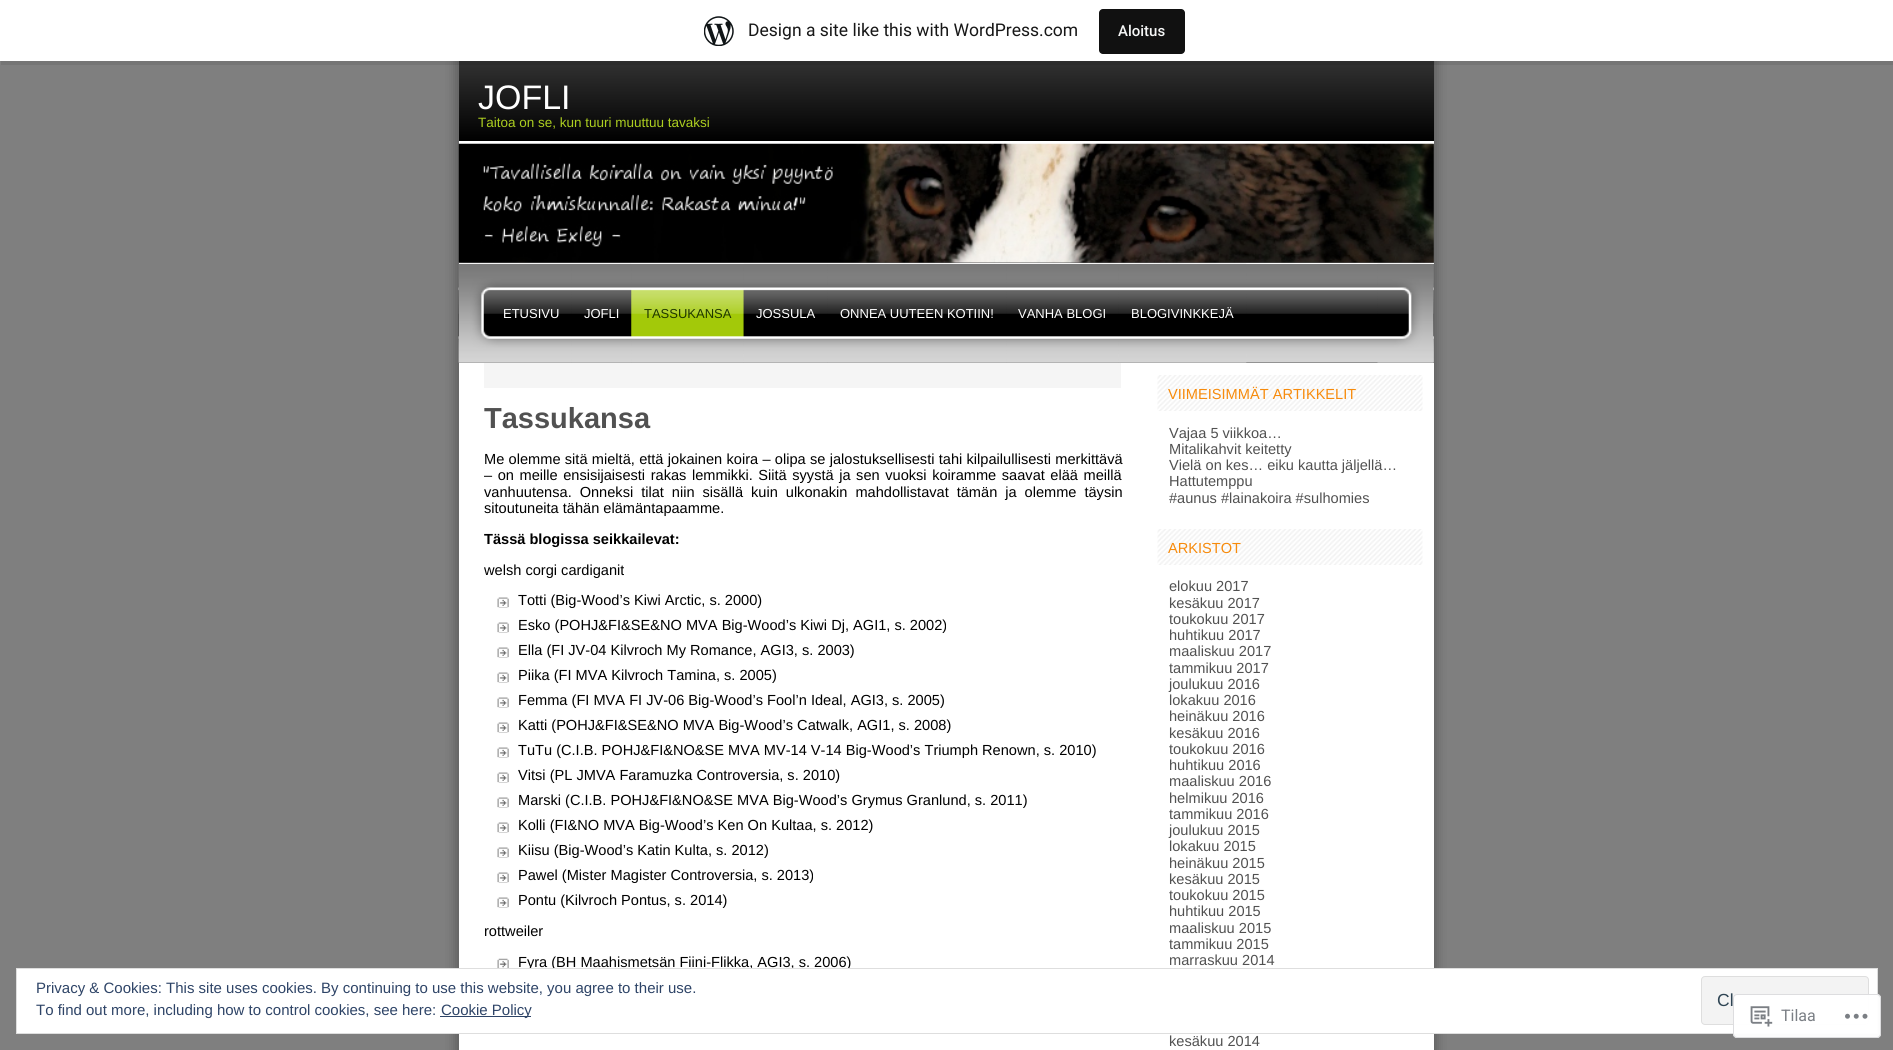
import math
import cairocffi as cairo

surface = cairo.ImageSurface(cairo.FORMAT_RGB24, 1893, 1050)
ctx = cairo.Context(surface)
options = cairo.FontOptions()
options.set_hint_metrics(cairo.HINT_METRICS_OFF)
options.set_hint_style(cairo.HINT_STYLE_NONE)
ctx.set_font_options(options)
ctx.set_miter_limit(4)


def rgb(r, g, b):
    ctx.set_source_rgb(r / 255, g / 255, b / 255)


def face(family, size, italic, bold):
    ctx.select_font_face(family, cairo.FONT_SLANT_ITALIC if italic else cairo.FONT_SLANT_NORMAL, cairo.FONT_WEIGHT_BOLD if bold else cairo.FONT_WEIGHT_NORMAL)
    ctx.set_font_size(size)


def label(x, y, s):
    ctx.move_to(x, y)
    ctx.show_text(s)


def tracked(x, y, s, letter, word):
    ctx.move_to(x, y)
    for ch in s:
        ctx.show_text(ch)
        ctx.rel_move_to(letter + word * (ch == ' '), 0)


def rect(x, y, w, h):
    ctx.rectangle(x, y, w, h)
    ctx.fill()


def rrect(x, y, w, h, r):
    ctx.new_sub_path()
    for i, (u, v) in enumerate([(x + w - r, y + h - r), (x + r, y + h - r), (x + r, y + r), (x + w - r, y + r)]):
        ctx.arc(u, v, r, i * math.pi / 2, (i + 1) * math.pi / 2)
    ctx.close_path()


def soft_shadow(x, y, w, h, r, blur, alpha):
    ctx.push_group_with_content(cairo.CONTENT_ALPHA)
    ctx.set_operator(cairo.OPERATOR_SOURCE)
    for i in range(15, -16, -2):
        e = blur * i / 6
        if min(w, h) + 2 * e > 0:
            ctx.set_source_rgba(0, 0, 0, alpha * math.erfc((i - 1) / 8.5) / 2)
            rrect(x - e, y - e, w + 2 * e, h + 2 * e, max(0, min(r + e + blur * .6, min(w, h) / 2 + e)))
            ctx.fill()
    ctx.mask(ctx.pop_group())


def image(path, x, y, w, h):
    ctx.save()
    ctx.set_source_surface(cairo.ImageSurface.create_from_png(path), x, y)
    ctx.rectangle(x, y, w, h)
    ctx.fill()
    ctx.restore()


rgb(127, 127, 127)
ctx.paint()
rgb(90, 90, 90)
soft_shadow(456, 59, 980, 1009, 0, 6, 1)
gradient = cairo.LinearGradient(946, 61, 946, 141)
gradient.add_color_stop_rgba(0, 0.196, 0.196, 0.196, 1)
gradient.add_color_stop_rgba(1, 0, 0, 0, 1)
ctx.set_source(gradient)
rect(459, 61, 975, 80)
ctx.set_source_rgba(0, 0, 0, 0.08)
ctx.new_path()
ctx.move_to(1, 61)
ctx.line_to(1, 65)
ctx.line_to(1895, 65)
ctx.line_to(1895, 4)
ctx.line_to(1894, 4)
ctx.line_to(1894, 61)
ctx.close_path()
ctx.fill()
rgb(255, 255, 255)
rect(0, 0, 1893, 61)
image('image0.png', 704, 16, 30, 30)
face('Roboto', 17.5, 0, 0)
rgb(23, 23, 23)
label(748, 36, 'Design a site like this with WordPress.com')
rgb(17, 17, 17)
rrect(1099, 9, 86, 45, 4)
ctx.fill()
face('Roboto Medium', 15, 0, 0)
rgb(246, 247, 247)
label(1118, 36, 'Aloitus')
rgb(255, 255, 255)
rect(459, 141, 975, 3)
face('Liberation Sans', 34, 0, 0)
label(478, 109, 'JOFLI')
face('Liberation Sans', 13.5, 0, 0)
rgb(173, 207, 32)
label(478, 127, 'Taitoa on se, kun tuuri muuttuu tavaksi')
image('image1.png', 458, 143, 976, 120)
rgb(255, 255, 255)
rect(459, 363, 975, 687)
rgb(81, 81, 81)
rect(459, 264, 975, 99)
image('image2.png', 458, 263, 976, 100)
rgb(255, 255, 255)
rect(459, 263, 975, 1)
image('image3.png', 458, 263, 114, 100)
face('Liberation Sans', 13, 0, 0)
label(503, 318, 'ETUSIVU')
image('image4.png', 571, 263, 61, 100)
label(584, 318, 'JOFLI')
image('image5.png', 631, 263, 113, 100)
rgb(31, 55, 0)
label(644, 318, 'TASSUKANSA')
image('image6.png', 743, 263, 85, 100)
rgb(255, 255, 255)
label(756, 318, 'JOSSULA')
image('image7.png', 827, 263, 180, 100)
label(840, 318, 'ONNEA UUTEEN KOTIIN!')
image('image8.png', 1006, 263, 113, 100)
label(1018, 318, 'VANHA BLOGI')
image('image9.png', 1118, 263, 129, 100)
label(1131, 318, 'BLOGIVINKKEJÄ')
image('image10.png', 1377, 263, 57, 100)
rgb(245, 245, 245)
rect(484, 363, 637, 25)
face('Liberation Sans', 29, 0, 1)
rgb(81, 81, 81)
label(484, 428, 'Tassukansa')
face('Liberation Sans', 14.6, 0, 0)
rgb(0, 0, 0)
tracked(484, 464, 'Me olemme sitä mieltä, että jokainen koira – olipa se jalostuksellisesti tahi kilpailullisesti merkittävä', 0, 0.25)
tracked(484, 480, '– on meille ensisijaisesti rakas lemmikki. Siitä syystä ja sen vuoksi koiramme saavat elää meillä', 0, 1.5)
tracked(484, 497, 'vanhuutensa. Onneksi tilat niin sisällä kuin ulkonakin mahdollistavat tämän ja olemme täysin', 0, 3.9)
label(484, 513, 'sitoutuneita tähän elämäntapaamme.')
face('Liberation Sans', 14.6, 0, 1)
label(484, 544, 'Tässä blogissa seikkailevat:')
face('Liberation Sans', 14.6, 0, 0)
label(484, 575, 'welsh corgi cardiganit')
image('image11.png', 497, 597, 12, 11)
label(518, 605, 'Totti (Big-Wood’s Kiwi Arctic, s. 2000)')
image('image11.png', 497, 622, 12, 11)
label(518, 630, 'Esko (POHJ&FI&SE&NO MVA Big-Wood’s Kiwi Dj, AGI1, s. 2002)')
image('image11.png', 497, 647, 12, 11)
label(518, 655, 'Ella (FI JV-04 Kilvroch My Romance, AGI3, s. 2003)')
image('image11.png', 497, 672, 12, 11)
label(518, 680, 'Piika (FI MVA Kilvroch Tamina, s. 2005)')
image('image11.png', 497, 697, 12, 11)
label(518, 705, 'Femma (FI MVA FI JV-06 Big-Wood’s Fool’n Ideal, AGI3, s. 2005)')
image('image11.png', 497, 722, 12, 11)
label(518, 730, 'Katti (POHJ&FI&SE&NO MVA Big-Wood’s Catwalk, AGI1, s. 2008)')
image('image11.png', 497, 747, 12, 11)
label(518, 755, 'TuTu (C.I.B. POHJ&FI&NO&SE MVA MV-14 V-14 Big-Wood’s Triumph Renown, s. 2010)')
image('image11.png', 497, 772, 12, 11)
label(518, 780, 'Vitsi (PL JMVA Faramuzka Controversia, s. 2010)')
image('image11.png', 497, 797, 12, 11)
label(518, 805, 'Marski (C.I.B. POHJ&FI&NO&SE MVA Big-Wood’s Grymus Granlund, s. 2011)')
image('image11.png', 497, 822, 12, 11)
label(518, 830, 'Kolli (FI&NO MVA Big-Wood’s Ken On Kultaa, s. 2012)')
image('image11.png', 497, 847, 12, 11)
label(518, 855, 'Kiisu (Big-Wood’s Katin Kulta, s. 2012)')
image('image11.png', 497, 872, 12, 11)
label(518, 880, 'Pawel (Mister Magister Controversia, s. 2013)')
image('image11.png', 497, 897, 12, 11)
label(518, 905, 'Pontu (Kilvroch Pontus, s. 2014)')
label(484, 936, 'rottweiler')
image('image12.png', 497, 958, 12, 10)
label(518, 967, 'Fyra (BH Maahismetsän Fiini-Flikka, AGI3, s. 2006)')
image('image13.png', 1157, 375, 266, 36)
rgb(247, 139, 12)
label(1168, 399, 'VIIMEISIMMÄT ARTIKKELIT')
rgb(81, 81, 81)
label(1169, 438, 'Vajaa 5 viikkoa…')
label(1169, 454, 'Mitalikahvit keitetty')
label(1169, 470, 'Vielä on kes… eiku kautta jäljellä…')
label(1169, 486, 'Hattutemppu')
label(1169, 503, '#aunus #lainakoira #sulhomies')
image('image14.png', 1157, 529, 266, 36)
rgb(247, 139, 12)
label(1168, 553, 'ARKISTOT')
rgb(81, 81, 81)
label(1169, 591, 'elokuu 2017')
label(1169, 608, 'kesäkuu 2017')
label(1169, 624, 'toukokuu 2017')
label(1169, 640, 'huhtikuu 2017')
label(1169, 656, 'maaliskuu 2017')
label(1169, 673, 'tammikuu 2017')
label(1169, 689, 'joulukuu 2016')
label(1169, 705, 'lokakuu 2016')
label(1169, 721, 'heinäkuu 2016')
label(1169, 738, 'kesäkuu 2016')
label(1169, 754, 'toukokuu 2016')
label(1169, 770, 'huhtikuu 2016')
label(1169, 786, 'maaliskuu 2016')
label(1169, 803, 'helmikuu 2016')
label(1169, 819, 'tammikuu 2016')
label(1169, 835, 'joulukuu 2015')
label(1169, 851, 'lokakuu 2015')
label(1169, 868, 'heinäkuu 2015')
label(1169, 884, 'kesäkuu 2015')
label(1169, 900, 'toukokuu 2015')
label(1169, 916, 'huhtikuu 2015')
label(1169, 933, 'maaliskuu 2015')
label(1169, 949, 'tammikuu 2015')
label(1169, 965, 'marraskuu 2014')
label(1169, 1046, 'kesäkuu 2014')
rgb(255, 255, 255)
ctx.rectangle(16.5, 968.5, 1861, 65)
ctx.fill_preserve()
rgb(222, 222, 222)
ctx.set_line_width(1)
ctx.stroke()
face('Liberation Sans', 15, 0, 0)
rgb(46, 68, 103)
label(36, 993, 'Privacy & Cookies: This site uses cookies. By continuing to use this website, you agree to their use.')
rgb(243, 243, 243)
rrect(1701.5, 976.5, 167, 48, 3.5)
ctx.fill_preserve()
rgb(222, 222, 222)
ctx.stroke()
face('Liberation Sans', 17.5, 0, 0)
rgb(46, 68, 83)
label(1717, 1006, 'Cl')
face('Liberation Sans', 15, 0, 0)
rgb(46, 68, 103)
label(36, 1015, 'To find out more, including how to control cookies, see here:')
rect(440, 1016, 91, 1)
label(441, 1015, 'Cookie Policy')
ctx.set_source_rgba(1, 1, 1, 0.98)
rrect(1733, 994, 148, 44, 4)
ctx.fill()
rrect(1733.5, 994.5, 147, 43, 3.5)
ctx.set_source_rgba(0.863, 0.863, 0.871, 0.98)
ctx.stroke()
image('image15.png', 1750, 1006, 23, 21)
face('Roboto', 16, 0, 0)
rgb(122, 126, 132)
label(1781, 1021, 'Tilaa')
image('image16.png', 1845, 1013, 23, 6)
surface.write_to_png('render.png')
